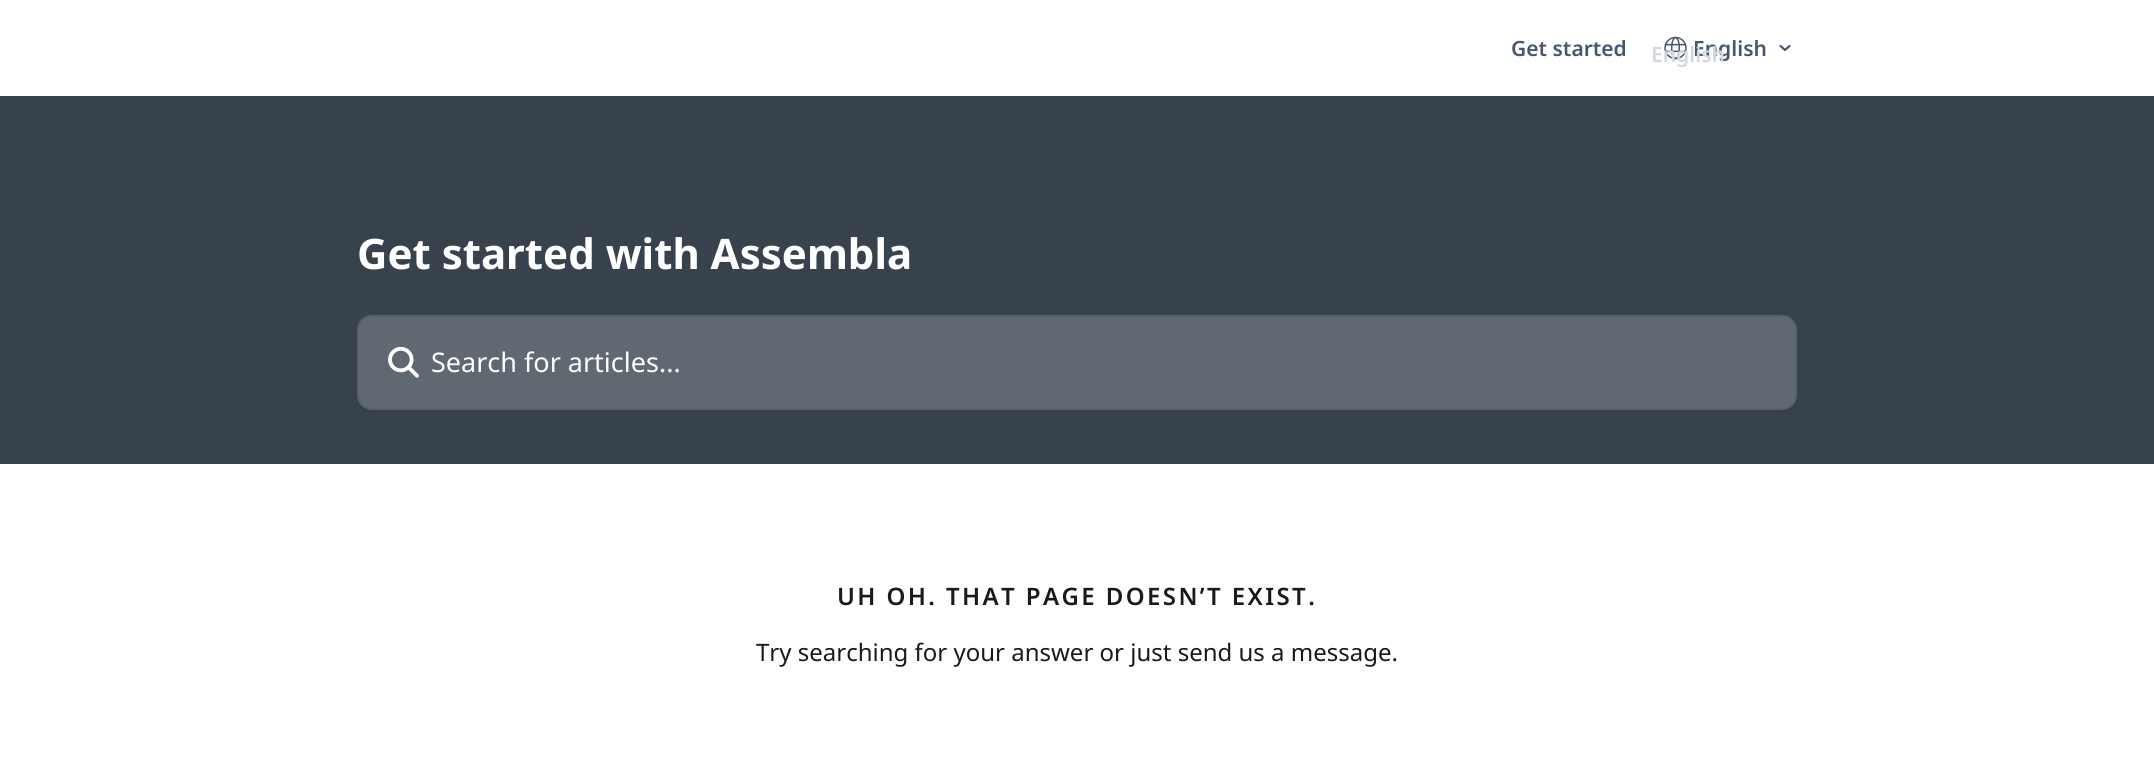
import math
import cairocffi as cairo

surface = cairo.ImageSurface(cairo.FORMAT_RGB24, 2154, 777)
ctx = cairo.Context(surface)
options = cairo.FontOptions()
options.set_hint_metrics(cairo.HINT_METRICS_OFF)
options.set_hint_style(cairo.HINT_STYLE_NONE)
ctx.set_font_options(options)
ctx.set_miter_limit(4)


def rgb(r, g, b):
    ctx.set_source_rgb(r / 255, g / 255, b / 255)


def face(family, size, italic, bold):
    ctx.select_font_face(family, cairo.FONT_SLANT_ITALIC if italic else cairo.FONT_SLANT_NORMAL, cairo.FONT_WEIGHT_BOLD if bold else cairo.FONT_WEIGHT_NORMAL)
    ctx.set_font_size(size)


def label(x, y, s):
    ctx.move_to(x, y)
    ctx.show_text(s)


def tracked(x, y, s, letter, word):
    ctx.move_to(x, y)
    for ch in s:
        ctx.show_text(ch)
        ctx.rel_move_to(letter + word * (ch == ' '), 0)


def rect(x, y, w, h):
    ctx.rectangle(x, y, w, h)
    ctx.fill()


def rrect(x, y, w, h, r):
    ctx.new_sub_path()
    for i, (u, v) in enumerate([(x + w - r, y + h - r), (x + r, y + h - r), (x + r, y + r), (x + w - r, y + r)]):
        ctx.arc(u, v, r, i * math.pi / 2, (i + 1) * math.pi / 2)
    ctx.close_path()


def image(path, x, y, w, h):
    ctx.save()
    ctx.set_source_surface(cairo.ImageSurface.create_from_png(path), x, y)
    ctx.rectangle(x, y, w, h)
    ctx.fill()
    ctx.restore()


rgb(255, 255, 255)
ctx.paint()
face('Noto Sans SemiBold', 21, 0, 0)
rgb(71, 86, 115)
label(1511, 56, 'Get started')
image('image0.png', 1664, 36, 23, 24)
label(1693, 56, 'English')
rgb(211, 215, 222)
label(1651, 62, 'English')
ctx.new_path()
ctx.move_to(1780.5, 46)
ctx.line_to(1785, 50)
ctx.line_to(1789.5, 46)
rgb(71, 86, 115)
ctx.set_line_width(2.2)
ctx.set_line_cap(cairo.LINE_CAP_ROUND)
ctx.set_line_join(cairo.LINE_JOIN_ROUND)
ctx.stroke()
rgb(56, 66, 77)
rect(0, 96, 2154, 368)
face('Noto Sans', 42, 0, 1)
rgb(255, 255, 255)
label(357, 269, 'Get started with Assembla')
ctx.set_source_rgba(1, 1, 1, 0.2)
rrect(357, 315, 1440, 95, 15)
ctx.fill()
rrect(358, 316, 1438, 93, 14)
ctx.set_source_rgba(0, 0, 0, 0.08)
ctx.set_line_width(2)
ctx.set_line_cap(cairo.LINE_CAP_BUTT)
ctx.set_line_join(cairo.LINE_JOIN_MITER)
ctx.stroke()
image('image1.png', 388, 347, 31, 31)
face('Noto Sans', 27, 0, 0)
rgb(255, 255, 255)
label(431, 372, 'Search for articles...')
face('Noto Sans SemiBold', 24, 0, 0)
rgb(26, 26, 26)
tracked(837, 605, 'UH OH. THAT PAGE DOESN’T EXIST.', 2.4, 0)
face('Noto Sans', 24, 0, 0)
label(756, 661, 'Try searching for your answer or just send us a message.')
surface.write_to_png('render.png')
